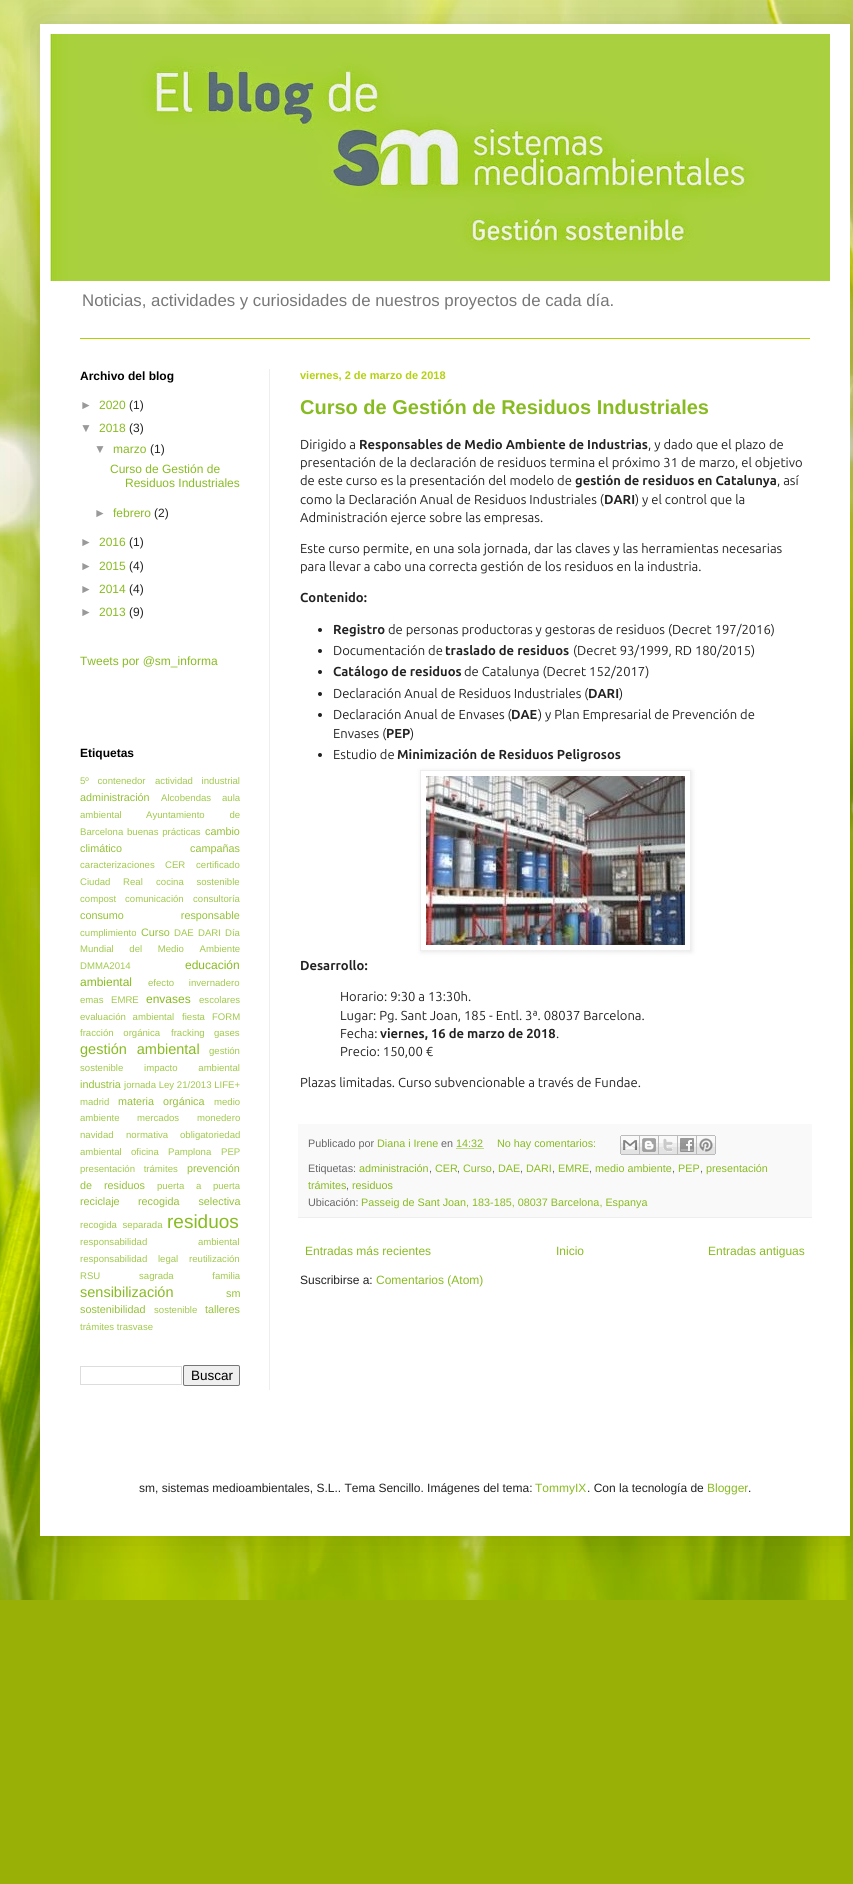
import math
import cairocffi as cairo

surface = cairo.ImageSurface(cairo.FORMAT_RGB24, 853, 1884)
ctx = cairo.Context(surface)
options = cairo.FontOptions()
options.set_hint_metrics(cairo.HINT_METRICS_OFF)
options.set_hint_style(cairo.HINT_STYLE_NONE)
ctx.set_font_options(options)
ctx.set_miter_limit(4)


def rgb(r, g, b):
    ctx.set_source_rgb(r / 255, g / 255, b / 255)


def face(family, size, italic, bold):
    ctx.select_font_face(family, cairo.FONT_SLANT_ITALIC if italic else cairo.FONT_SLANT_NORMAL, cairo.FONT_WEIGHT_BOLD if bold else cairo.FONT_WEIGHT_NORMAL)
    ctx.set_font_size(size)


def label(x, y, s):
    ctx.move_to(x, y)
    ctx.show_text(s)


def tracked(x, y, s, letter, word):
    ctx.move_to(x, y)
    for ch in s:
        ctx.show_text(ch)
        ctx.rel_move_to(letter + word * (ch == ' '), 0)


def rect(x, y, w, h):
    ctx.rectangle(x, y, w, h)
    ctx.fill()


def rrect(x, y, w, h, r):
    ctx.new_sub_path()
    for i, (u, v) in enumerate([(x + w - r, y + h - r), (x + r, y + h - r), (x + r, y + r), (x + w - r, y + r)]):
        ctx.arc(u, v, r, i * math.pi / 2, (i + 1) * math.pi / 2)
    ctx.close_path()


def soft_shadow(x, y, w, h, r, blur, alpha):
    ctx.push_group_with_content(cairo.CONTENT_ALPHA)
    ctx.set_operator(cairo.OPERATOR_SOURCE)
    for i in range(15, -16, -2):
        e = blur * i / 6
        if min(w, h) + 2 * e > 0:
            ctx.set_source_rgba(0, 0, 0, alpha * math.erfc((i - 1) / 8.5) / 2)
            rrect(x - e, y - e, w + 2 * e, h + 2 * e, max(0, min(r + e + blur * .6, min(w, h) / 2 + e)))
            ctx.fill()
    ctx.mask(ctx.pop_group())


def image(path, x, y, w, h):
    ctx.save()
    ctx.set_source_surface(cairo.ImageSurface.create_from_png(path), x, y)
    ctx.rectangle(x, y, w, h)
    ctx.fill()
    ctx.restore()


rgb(153, 176, 6)
ctx.paint()
image('image0.png', 0, 0, 853, 1600)
rgb(0, 0, 0)
soft_shadow(40, 24, 810, 1512, 0, 20, 0.15)
rgb(255, 255, 255)
rect(40, 24, 810, 1512)
image('image1.png', 50, 34, 780, 247)
face('Liberation Sans', 16.8, 0, 0)
rgb(119, 119, 119)
label(82, 306, 'Noticias, actividades y curiosidades de nuestros proyectos de cada día.')
rgb(178, 208, 0)
rect(80, 338, 730, 1)
rgb(238, 238, 238)
rect(269, 369, 1, 1021)
face('Liberation Sans', 12, 0, 1)
rgb(0, 0, 0)
label(80, 380, 'Archivo del blog')
face('Liberation Sans', 12, 0, 0)
rgb(153, 153, 153)
label(80, 409, '►')
rgb(136, 187, 33)
label(99, 409, '2020')
rgb(34, 34, 34)
label(129, 409, '(1)')
rgb(153, 153, 153)
label(80, 432, '▼')
rgb(136, 187, 33)
label(99, 432, '2018')
rgb(34, 34, 34)
label(129, 432, '(3)')
rgb(153, 153, 153)
label(94, 453, '▼')
rgb(136, 187, 33)
label(113, 453, 'marzo')
rgb(34, 34, 34)
label(150, 453, '(1)')
rgb(136, 187, 33)
label(110, 473, 'Curso de Gestión de')
label(125, 487, 'Residuos Industriales')
rgb(153, 153, 153)
label(94, 517, '►')
rgb(136, 187, 33)
label(113, 517, 'febrero')
rgb(34, 34, 34)
label(154, 517, '(2)')
rgb(153, 153, 153)
label(80, 546, '►')
rgb(136, 187, 33)
label(99, 546, '2016')
rgb(34, 34, 34)
label(129, 546, '(1)')
rgb(153, 153, 153)
label(80, 570, '►')
rgb(136, 187, 33)
label(99, 570, '2015')
rgb(34, 34, 34)
label(129, 570, '(4)')
rgb(153, 153, 153)
label(80, 593, '►')
rgb(136, 187, 33)
label(99, 593, '2014')
rgb(34, 34, 34)
label(129, 593, '(4)')
rgb(153, 153, 153)
label(80, 616, '►')
rgb(136, 187, 33)
label(99, 616, '2013')
rgb(34, 34, 34)
label(129, 616, '(9)')
rgb(136, 187, 33)
label(80, 665, 'Tweets por @sm_informa')
face('Liberation Sans', 12, 0, 1)
rgb(0, 0, 0)
label(80, 757, 'Etiquetas')
face('Liberation Sans', 9.6, 0, 0)
rgb(160, 201, 77)
tracked(80, 784, '5º contenedor', 0, 6)
tracked(155, 784, 'actividad industrial', 0, 6)
face('Liberation Sans', 10.8, 0, 0)
rgb(148, 194, 55)
label(80, 801, 'administración')
face('Liberation Sans', 9.6, 0, 0)
rgb(160, 201, 77)
label(161, 801, 'Alcobendas')
label(222, 801, 'aula')
label(80, 818, 'ambiental')
tracked(146, 818, 'Ayuntamiento de', 0, 22)
label(80, 835, 'Barcelona')
tracked(127, 835, 'buenas prácticas', 0, 1)
face('Liberation Sans', 10.8, 0, 0)
rgb(148, 194, 55)
label(205, 835, 'cambio')
label(80, 852, 'climático')
label(190, 852, 'campañas')
face('Liberation Sans', 9.6, 0, 0)
rgb(160, 201, 77)
label(80, 868, 'caracterizaciones')
label(165, 868, 'CER')
label(196, 868, 'certificado')
tracked(80, 885, 'Ciudad Real', 0, 10)
tracked(156, 885, 'cocina sostenible', 0, 10)
label(80, 902, 'compost')
label(125, 902, 'comunicación')
label(193, 902, 'consultoría')
face('Liberation Sans', 10.8, 0, 0)
rgb(148, 194, 55)
tracked(80, 919, 'consumo responsable', 0, 54)
face('Liberation Sans', 9.6, 0, 0)
rgb(160, 201, 77)
label(80, 936, 'cumplimiento')
face('Liberation Sans', 10.8, 0, 0)
rgb(148, 194, 55)
label(141, 936, 'Curso')
face('Liberation Sans', 9.6, 0, 0)
rgb(160, 201, 77)
label(174, 936, 'DAE')
label(198, 936, 'DARI')
label(225, 936, 'Día')
tracked(80, 952, 'Mundial del Medio Ambiente', 0, 13)
label(80, 969, 'DMMA2014')
face('Liberation Sans', 12, 0, 0)
rgb(136, 187, 33)
label(185, 969, 'educación')
label(80, 986, 'ambiental')
face('Liberation Sans', 9.6, 0, 0)
rgb(160, 201, 77)
tracked(148, 986, 'efecto invernadero', 0, 12)
label(80, 1003, 'emas')
label(111, 1003, 'EMRE')
face('Liberation Sans', 12, 0, 0)
rgb(136, 187, 33)
label(146, 1003, 'envases')
face('Liberation Sans', 9.6, 0, 0)
rgb(160, 201, 77)
label(199, 1003, 'escolares')
tracked(80, 1020, 'evaluación ambiental', 0, 4)
label(182, 1020, 'fiesta')
label(212, 1020, 'FORM')
tracked(80, 1036, 'fracción orgánica', 0, 7)
label(171, 1036, 'fracking')
label(214, 1036, 'gases')
face('Liberation Sans', 14.5, 0, 0)
rgb(136, 187, 33)
tracked(80, 1054, 'gestión ambiental', 0, 6)
face('Liberation Sans', 9.6, 0, 0)
rgb(160, 201, 77)
label(209, 1054, 'gestión')
label(80, 1071, 'sostenible')
tracked(144, 1071, 'impacto ambiental', 0, 18)
face('Liberation Sans', 10.8, 0, 0)
rgb(148, 194, 55)
label(80, 1088, 'industria')
face('Liberation Sans', 9.6, 0, 0)
rgb(160, 201, 77)
label(124, 1088, 'jornada Ley 21/2013 LIFE+')
label(80, 1105, 'madrid')
face('Liberation Sans', 10.8, 0, 0)
rgb(148, 194, 55)
tracked(118, 1105, 'materia orgánica', 0, 6)
face('Liberation Sans', 9.6, 0, 0)
rgb(160, 201, 77)
label(214, 1105, 'medio')
label(80, 1121, 'ambiente')
label(137, 1121, 'mercados')
label(197, 1121, 'monedero')
label(80, 1138, 'navidad')
label(126, 1138, 'normativa')
label(180, 1138, 'obligatoriedad')
label(80, 1155, 'ambiental')
label(131, 1155, 'oficina')
label(168, 1155, 'Pamplona')
label(221, 1155, 'PEP')
tracked(80, 1172, 'presentación trámites', 0, 6)
face('Liberation Sans', 10.8, 0, 0)
rgb(148, 194, 55)
label(187, 1172, 'prevención')
tracked(80, 1189, 'de residuos', 0, 9)
face('Liberation Sans', 9.6, 0, 0)
rgb(160, 201, 77)
tracked(157, 1189, 'puerta a puerta', 0, 9)
face('Liberation Sans', 10.8, 0, 0)
rgb(148, 194, 55)
label(80, 1205, 'reciclaje')
tracked(138, 1205, 'recogida selectiva', 0, 16)
face('Liberation Sans', 9.6, 0, 0)
rgb(160, 201, 77)
tracked(80, 1228, 'recogida separada', 0, 3)
face('Liberation Sans', 19, 0, 0)
rgb(136, 187, 33)
label(167, 1228, 'residuos')
face('Liberation Sans', 9.6, 0, 0)
rgb(160, 201, 77)
tracked(80, 1245, 'responsabilidad ambiental', 0, 48)
tracked(80, 1262, 'responsabilidad legal', 0, 8)
label(189, 1262, 'reutilización')
label(80, 1279, 'RSU')
tracked(139, 1279, 'sagrada familia', 0, 36)
face('Liberation Sans', 14.5, 0, 0)
rgb(136, 187, 33)
label(80, 1297, 'sensibilización')
face('Liberation Sans', 10.8, 0, 0)
rgb(148, 194, 55)
label(226, 1297, 'sm')
label(80, 1313, 'sostenibilidad')
face('Liberation Sans', 9.6, 0, 0)
rgb(160, 201, 77)
label(154, 1313, 'sostenible')
face('Liberation Sans', 10.8, 0, 0)
rgb(148, 194, 55)
label(205, 1313, 'talleres')
face('Liberation Sans', 9.6, 0, 0)
rgb(160, 201, 77)
label(80, 1330, 'trámites trasvase')
ctx.rectangle(80.5, 1366.5, 101, 18)
rgb(221, 221, 221)
ctx.set_line_width(1)
ctx.stroke()
rgb(239, 239, 239)
rrect(183.5, 1365.5, 56, 20, 1.5)
ctx.fill_preserve()
rgb(118, 118, 118)
ctx.stroke()
face('Liberation Sans', 13.5, 0, 0)
rgb(0, 0, 0)
label(191, 1380, 'Buscar')
face('Liberation Sans', 11, 0, 1)
rgb(181, 208, 15)
label(300, 379, 'viernes, 2 de marzo de 2018')
face('Liberation Sans', 20, 0, 1)
rgb(136, 187, 33)
label(300, 414, 'Curso de Gestión de Residuos Industriales')
face('Ubuntu', 13, 0, 0)
rgb(34, 34, 34)
label(300, 449, 'Dirigido a')
face('Ubuntu', 13, 0, 1)
label(359, 449, 'Responsables de Medio Ambiente de Industrias')
face('Ubuntu', 13, 0, 0)
label(648, 449, ', y dado que el plazo de')
label(300, 467, 'presentación de la declaración de residuos termina el próximo 31 de marzo, el objetivo')
label(300, 485, 'de este curso es la presentación del modelo de')
face('Ubuntu', 13, 0, 1)
label(575, 485, 'gestión de residuos en Catalunya')
face('Ubuntu', 13, 0, 0)
label(777, 485, ', así')
label(300, 504, 'como la Declaración Anual de Residuos Industriales (')
face('Ubuntu', 13, 0, 1)
label(604, 504, 'DARI')
face('Ubuntu', 13, 0, 0)
label(635, 504, ') y el control que la')
label(300, 522, 'Administración ejerce sobre las empresas.')
label(300, 553, 'Este curso permite, en una sola jornada, dar las claves y las herramientas necesarias')
label(300, 571, 'para llevar a cabo una correcta gestión de los residuos en la industria.')
face('Ubuntu', 13, 0, 1)
label(300, 602, 'Contenido:')
ctx.new_path()
ctx.arc(320, 630, 2, 0, 2 * math.pi)
ctx.fill()
label(333, 634, 'Registro')
face('Ubuntu', 13, 0, 0)
label(388, 634, 'de personas productoras y gestoras de residuos (Decret 197/2016)')
ctx.new_path()
ctx.arc(320, 651, 2, 0, 2 * math.pi)
ctx.fill()
label(333, 655, 'Documentación de')
face('Ubuntu', 13, 0, 1)
label(445, 655, 'traslado de residuos')
face('Ubuntu', 13, 0, 0)
label(573, 655, '(Decret 93/1999, RD 180/2015)')
ctx.new_path()
ctx.arc(320, 672, 2, 0, 2 * math.pi)
ctx.fill()
face('Ubuntu', 13, 0, 1)
label(333, 676, 'Catálogo de residuos')
face('Ubuntu', 13, 0, 0)
label(464, 676, 'de Catalunya (Decret 152/2017)')
ctx.new_path()
ctx.arc(320, 694, 2, 0, 2 * math.pi)
ctx.fill()
label(333, 698, 'Declaración Anual de Residuos Industriales (')
face('Ubuntu', 13, 0, 1)
label(588, 698, 'DARI')
face('Ubuntu', 13, 0, 0)
label(619, 698, ')')
ctx.new_path()
ctx.arc(320, 715, 2, 0, 2 * math.pi)
ctx.fill()
label(333, 719, 'Declaración Anual de Envases (')
face('Ubuntu', 13, 0, 1)
label(511, 719, 'DAE')
face('Ubuntu', 13, 0, 0)
label(538, 719, ') y Plan Empresarial de Prevención de')
label(333, 738, 'Envases (')
face('Ubuntu', 13, 0, 1)
label(386, 738, 'PEP')
face('Ubuntu', 13, 0, 0)
label(410, 738, ')')
ctx.new_path()
ctx.arc(320, 755, 2, 0, 2 * math.pi)
ctx.fill()
label(333, 759, 'Estudio de')
face('Ubuntu', 13, 0, 1)
label(397, 759, 'Minimización de Residuos Peligrosos')
ctx.save()
ctx.set_fill_rule(cairo.FILL_RULE_EVEN_ODD)
ctx.new_path()
ctx.move_to(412, 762)
ctx.line_to(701, 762)
ctx.line_to(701, 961)
ctx.line_to(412, 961)
ctx.close_path()
ctx.move_to(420, 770)
ctx.line_to(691, 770)
ctx.line_to(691, 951)
ctx.line_to(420, 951)
ctx.close_path()
ctx.clip()
rgb(0, 0, 0)
soft_shadow(421, 771, 271, 181, 0, 2.5, 0.1)
ctx.restore()
ctx.rectangle(420.5, 770.5, 270, 180)
rgb(238, 238, 238)
ctx.stroke()
image('image2.png', 426, 776, 259, 169)
rgb(34, 34, 34)
label(300, 970, 'Desarrollo:')
face('Ubuntu', 13, 0, 0)
label(340, 1001, 'Horario: 9:30 a 13:30h.')
label(340, 1020, 'Lugar: Pg. Sant Joan, 185 - Entl. 3ª. 08037 Barcelona.')
label(340, 1038, 'Fecha:')
face('Ubuntu', 13, 0, 1)
label(380, 1038, 'viernes, 16 de marzo de 2018')
face('Ubuntu', 13, 0, 0)
label(556, 1038, '.')
label(340, 1056, 'Precio: 150,00 €')
label(300, 1087, 'Plazas limitadas. Curso subvencionable a través de Fundae.')
rgb(249, 249, 249)
rect(298, 1124, 514, 93)
rgb(238, 238, 238)
rect(298, 1217, 514, 1)
face('Liberation Sans', 10.8, 0, 0)
rgb(102, 102, 102)
label(308, 1147, 'Publicado por')
rgb(136, 187, 33)
label(377, 1147, 'Diana i Irene')
rgb(102, 102, 102)
label(441, 1147, 'en')
rgb(136, 187, 33)
label(456, 1147, '14:32')
ctx.new_path()
ctx.move_to(456.5, 1148.5)
ctx.line_to(483.5, 1148.5)
ctx.set_dash([1, 1])
ctx.stroke()
label(497, 1147, 'No hay comentarios:')
image('image3.png', 620, 1135, 20, 20)
image('image4.png', 640, 1135, 19, 20)
image('image5.png', 659, 1135, 19, 20)
image('image6.png', 678, 1135, 19, 20)
image('image7.png', 697, 1135, 19, 20)
rgb(102, 102, 102)
label(308, 1172, 'Etiquetas:')
rgb(136, 187, 33)
label(359, 1172, 'administración')
rgb(102, 102, 102)
label(429, 1172, ',')
rgb(136, 187, 33)
label(435, 1172, 'CER')
rgb(102, 102, 102)
label(457, 1172, ',')
rgb(136, 187, 33)
label(463, 1172, 'Curso')
rgb(102, 102, 102)
label(492, 1172, ',')
rgb(136, 187, 33)
label(498, 1172, 'DAE')
rgb(102, 102, 102)
label(520, 1172, ',')
rgb(136, 187, 33)
label(526, 1172, 'DARI')
rgb(102, 102, 102)
label(552, 1172, ',')
rgb(136, 187, 33)
label(558, 1172, 'EMRE')
rgb(102, 102, 102)
label(589, 1172, ',')
rgb(136, 187, 33)
label(595, 1172, 'medio ambiente')
rgb(102, 102, 102)
label(672, 1172, ',')
rgb(136, 187, 33)
label(678, 1172, 'PEP')
rgb(102, 102, 102)
label(700, 1172, ',')
rgb(136, 187, 33)
label(706, 1172, 'presentación')
label(308, 1189, 'trámites')
rgb(102, 102, 102)
label(346, 1189, ',')
rgb(136, 187, 33)
label(352, 1189, 'residuos')
rgb(102, 102, 102)
label(308, 1206, 'Ubicación:')
rgb(136, 187, 33)
label(361, 1206, 'Passeig de Sant Joan, 183-185, 08037 Barcelona, Espanya')
face('Liberation Sans', 12, 0, 0)
label(305, 1255, 'Entradas más recientes')
label(556, 1255, 'Inicio')
label(708, 1255, 'Entradas antiguas')
rgb(34, 34, 34)
label(300, 1284, 'Suscribirse a:')
rgb(136, 187, 33)
label(376, 1284, 'Comentarios (Atom)')
rgb(34, 34, 34)
label(139, 1492, 'sm, sistemas medioambientales, S.L.. Tema Sencillo. Imágenes del tema:')
rgb(136, 187, 33)
label(535, 1492, 'TommyIX')
rgb(34, 34, 34)
label(587, 1492, '. Con la tecnología de')
rgb(136, 187, 33)
label(707, 1492, 'Blogger')
rgb(34, 34, 34)
label(748, 1492, '.')
surface.write_to_png('render.png')
